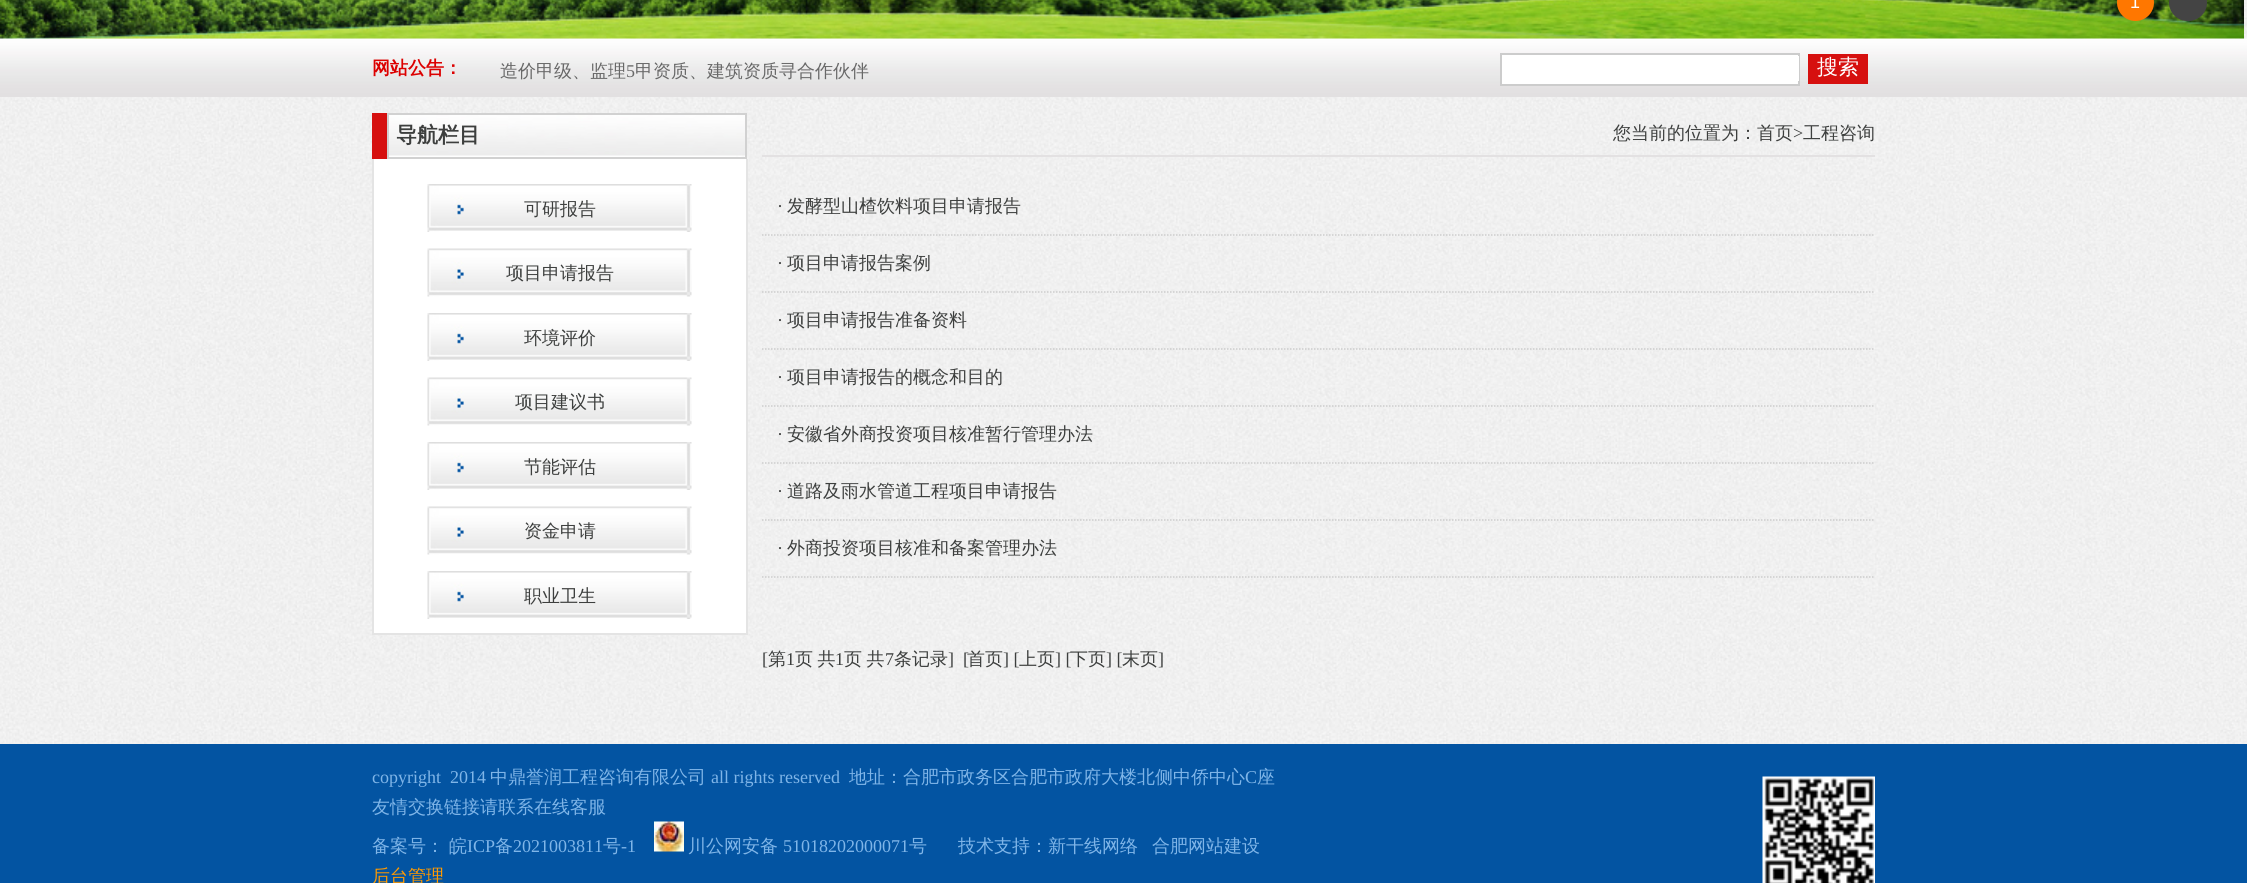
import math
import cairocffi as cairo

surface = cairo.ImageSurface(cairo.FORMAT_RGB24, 2247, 883)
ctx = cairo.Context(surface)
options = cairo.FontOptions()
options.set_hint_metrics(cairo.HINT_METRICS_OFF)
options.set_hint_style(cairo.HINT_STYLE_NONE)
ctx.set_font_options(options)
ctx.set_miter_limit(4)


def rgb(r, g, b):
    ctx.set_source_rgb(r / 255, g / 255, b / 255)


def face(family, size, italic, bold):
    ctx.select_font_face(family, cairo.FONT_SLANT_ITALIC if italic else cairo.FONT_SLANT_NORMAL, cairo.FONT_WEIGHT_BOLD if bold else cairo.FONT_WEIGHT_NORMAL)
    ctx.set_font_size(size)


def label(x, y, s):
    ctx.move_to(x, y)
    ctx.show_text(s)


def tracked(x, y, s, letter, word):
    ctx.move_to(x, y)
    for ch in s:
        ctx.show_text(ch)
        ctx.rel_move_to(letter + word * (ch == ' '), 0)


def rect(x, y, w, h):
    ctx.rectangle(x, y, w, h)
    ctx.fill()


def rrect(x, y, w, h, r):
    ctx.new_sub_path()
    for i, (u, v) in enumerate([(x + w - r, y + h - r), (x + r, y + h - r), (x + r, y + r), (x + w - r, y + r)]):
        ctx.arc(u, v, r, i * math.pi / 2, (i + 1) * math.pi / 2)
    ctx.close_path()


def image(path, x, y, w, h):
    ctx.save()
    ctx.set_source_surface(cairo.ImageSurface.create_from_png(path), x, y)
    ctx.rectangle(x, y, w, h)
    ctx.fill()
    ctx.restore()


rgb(255, 255, 255)
ctx.paint()
image('image0.png', 0, 0, 2247, 744)
image('image2.png', 0, 38, 2247, 59)
image('image1.png', 0, 0, 2244, 39)
rgb(255, 119, 0)
ctx.arc(2135.5, 2.5, 18.5, 0, 2 * math.pi)
ctx.fill()
face('Liberation Sans', 18, 0, 0)
rgb(255, 255, 255)
label(2130, 8, '1')
rgb(68, 68, 68)
rrect(2169, -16, 38, 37, 18.5)
ctx.fill()
face('WenQuanYi Zen Hei', 18, 0, 1)
rgb(220, 0, 0)
label(372, 74, '网站公告：')
face('WenQuanYi Zen Hei Medium', 18, 0, 0)
rgb(104, 104, 104)
label(500, 77, '造价甲级、监理')
face('Liberation Serif', 18, 0, 0)
label(626, 77, '5')
face('WenQuanYi Zen Hei Medium', 18, 0, 0)
label(635, 77, '甲资质、建筑资质寻合作伙伴')
rgb(255, 255, 255)
ctx.rectangle(1501, 54, 298, 31)
ctx.fill_preserve()
rgb(204, 204, 204)
ctx.stroke()
rgb(255, 255, 255)
rect(1798, 56, 1, 25)
rgb(214, 16, 15)
rect(1808, 54, 60, 30)
face('WenQuanYi Zen Hei Medium', 21, 0, 0)
rgb(255, 255, 255)
label(1817, 74, '搜索')
rgb(214, 16, 15)
rect(372, 113, 15, 46)
image('image3.png', 389, 115, 356, 42)
ctx.rectangle(388, 114, 358, 44)
rgb(209, 209, 209)
ctx.stroke()
face('WenQuanYi Zen Hei', 21, 0, 1)
rgb(61, 63, 62)
label(396, 142, '导航栏目')
rgb(255, 255, 255)
rect(374, 159, 372, 474)
rgb(228, 228, 228)
rect(746, 159, 2, 476)
rect(372, 633, 375, 2)
rect(372, 159, 2, 476)
image('image4.png', 427, 184, 265, 48)
face('WenQuanYi Zen Hei Medium', 18, 0, 0)
rgb(61, 63, 62)
label(524, 215, '可研报告')
image('image5.png', 427, 248, 265, 49)
label(506, 279, '项目申请报告')
image('image4.png', 427, 313, 265, 48)
label(524, 344, '环境评价')
image('image5.png', 427, 377, 265, 49)
label(515, 408, '项目建议书')
image('image4.png', 427, 442, 265, 48)
label(524, 473, '节能评估')
image('image5.png', 427, 506, 265, 49)
label(524, 537, '资金申请')
image('image4.png', 427, 571, 265, 48)
label(524, 602, '职业卫生')
label(1613, 139, '您当前的位置为：首页')
face('Liberation Serif', 18, 0, 0)
label(1793, 139, '>')
face('WenQuanYi Zen Hei Medium', 18, 0, 0)
label(1803, 139, '工程咨询')
rgb(227, 225, 226)
rect(762, 155, 1113, 2)
ctx.new_path()
ctx.move_to(762, 235)
ctx.line_to(1875, 235)
rgb(204, 204, 204)
ctx.set_line_width(1.5)
ctx.set_dash([1.5, 1.5])
ctx.stroke()
face('Liberation Serif', 18, 0, 0)
rgb(61, 63, 62)
label(777, 212, '·')
face('WenQuanYi Zen Hei Medium', 18, 0, 0)
label(787, 212, '发酵型山楂饮料项目申请报告')
ctx.new_path()
ctx.move_to(762, 292)
ctx.line_to(1875, 292)
rgb(204, 204, 204)
ctx.stroke()
face('Liberation Serif', 18, 0, 0)
rgb(61, 63, 62)
label(777, 269, '·')
face('WenQuanYi Zen Hei Medium', 18, 0, 0)
label(787, 269, '项目申请报告案例')
ctx.new_path()
ctx.move_to(762, 349)
ctx.line_to(1875, 349)
rgb(204, 204, 204)
ctx.stroke()
face('Liberation Serif', 18, 0, 0)
rgb(61, 63, 62)
label(777, 326, '·')
face('WenQuanYi Zen Hei Medium', 18, 0, 0)
label(787, 326, '项目申请报告准备资料')
ctx.new_path()
ctx.move_to(762, 406)
ctx.line_to(1875, 406)
rgb(204, 204, 204)
ctx.stroke()
face('Liberation Serif', 18, 0, 0)
rgb(61, 63, 62)
label(777, 383, '·')
face('WenQuanYi Zen Hei Medium', 18, 0, 0)
label(787, 383, '项目申请报告的概念和目的')
ctx.new_path()
ctx.move_to(762, 463)
ctx.line_to(1875, 463)
rgb(204, 204, 204)
ctx.stroke()
face('Liberation Serif', 18, 0, 0)
rgb(61, 63, 62)
label(777, 440, '·')
face('WenQuanYi Zen Hei Medium', 18, 0, 0)
label(787, 440, '安徽省外商投资项目核准暂行管理办法')
ctx.new_path()
ctx.move_to(762, 520)
ctx.line_to(1875, 520)
rgb(204, 204, 204)
ctx.stroke()
face('Liberation Serif', 18, 0, 0)
rgb(61, 63, 62)
label(777, 497, '·')
face('WenQuanYi Zen Hei Medium', 18, 0, 0)
label(787, 497, '道路及雨水管道工程项目申请报告')
ctx.new_path()
ctx.move_to(762, 577)
ctx.line_to(1875, 577)
rgb(204, 204, 204)
ctx.stroke()
face('Liberation Serif', 18, 0, 0)
rgb(61, 63, 62)
label(777, 554, '·')
face('WenQuanYi Zen Hei Medium', 18, 0, 0)
label(787, 554, '外商投资项目核准和备案管理办法')
face('Liberation Serif', 18, 0, 0)
label(762, 665, '[')
face('WenQuanYi Zen Hei Medium', 18, 0, 0)
label(768, 665, '第')
face('Liberation Serif', 18, 0, 0)
label(786, 665, '1')
face('WenQuanYi Zen Hei Medium', 18, 0, 0)
tracked(795, 665, '页 共', 0, -1)
face('Liberation Serif', 18, 0, 0)
label(835, 665, '1')
face('WenQuanYi Zen Hei Medium', 18, 0, 0)
tracked(844, 665, '页 共', 0, -1)
face('Liberation Serif', 18, 0, 0)
label(885, 665, '7')
face('WenQuanYi Zen Hei Medium', 18, 0, 0)
label(894, 665, '条记录')
face('Liberation Serif', 18, 0, 0)
label(948, 665, ']  [')
face('WenQuanYi Zen Hei Medium', 18, 0, 0)
label(967, 665, '首页')
face('Liberation Serif', 18, 0, 0)
label(1003, 665, '] [')
face('WenQuanYi Zen Hei Medium', 18, 0, 0)
label(1019, 665, '上页')
face('Liberation Serif', 18, 0, 0)
label(1055, 665, '] [')
face('WenQuanYi Zen Hei Medium', 18, 0, 0)
label(1070, 665, '下页')
face('Liberation Serif', 18, 0, 0)
label(1106, 665, '] [')
face('WenQuanYi Zen Hei Medium', 18, 0, 0)
label(1122, 665, '末页')
face('Liberation Serif', 18, 0, 0)
label(1158, 665, ']')
rgb(3, 84, 162)
rect(0, 744, 2247, 139)
rgb(127, 181, 232)
label(372, 783, 'copyright  2014')
face('WenQuanYi Zen Hei Medium', 18, 0, 0)
label(490, 783, '中鼎誉润工程咨询有限公司')
face('Liberation Serif', 18, 0, 0)
label(711, 783, 'all rights reserved')
face('WenQuanYi Zen Hei Medium', 18, 0, 0)
label(849, 783, '地址：合肥市政务区合肥市政府大楼北侧中侨中心')
face('Liberation Serif', 18, 0, 0)
label(1245, 783, 'C')
face('WenQuanYi Zen Hei Medium', 18, 0, 0)
label(1257, 783, '座')
label(372, 813, '友情交换链接请联系在线客服')
label(372, 852, '备案号：')
label(449, 852, '皖')
face('Liberation Serif', 18, 0, 0)
label(467, 852, 'ICP')
face('WenQuanYi Zen Hei Medium', 18, 0, 0)
label(495, 852, '备')
face('Liberation Serif', 18, 0, 0)
label(513, 852, '2021003811')
face('WenQuanYi Zen Hei Medium', 18, 0, 0)
label(603, 852, '号')
face('Liberation Serif', 18, 0, 0)
label(621, 852, '-1')
image('image6.png', 654, 821, 30, 31)
face('WenQuanYi Zen Hei Medium', 18, 0, 0)
label(688, 852, '川公网安备')
face('Liberation Serif', 18, 0, 0)
label(783, 852, '51018202000071')
face('WenQuanYi Zen Hei Medium', 18, 0, 0)
label(909, 852, '号')
label(958, 852, '技术支持：新干线网络')
label(1152, 852, '合肥网站建设')
rgb(255, 153, 0)
label(372, 882, '后台管理')
image('image7.png', 1762, 776, 113, 107)
surface.write_to_png('render.png')
